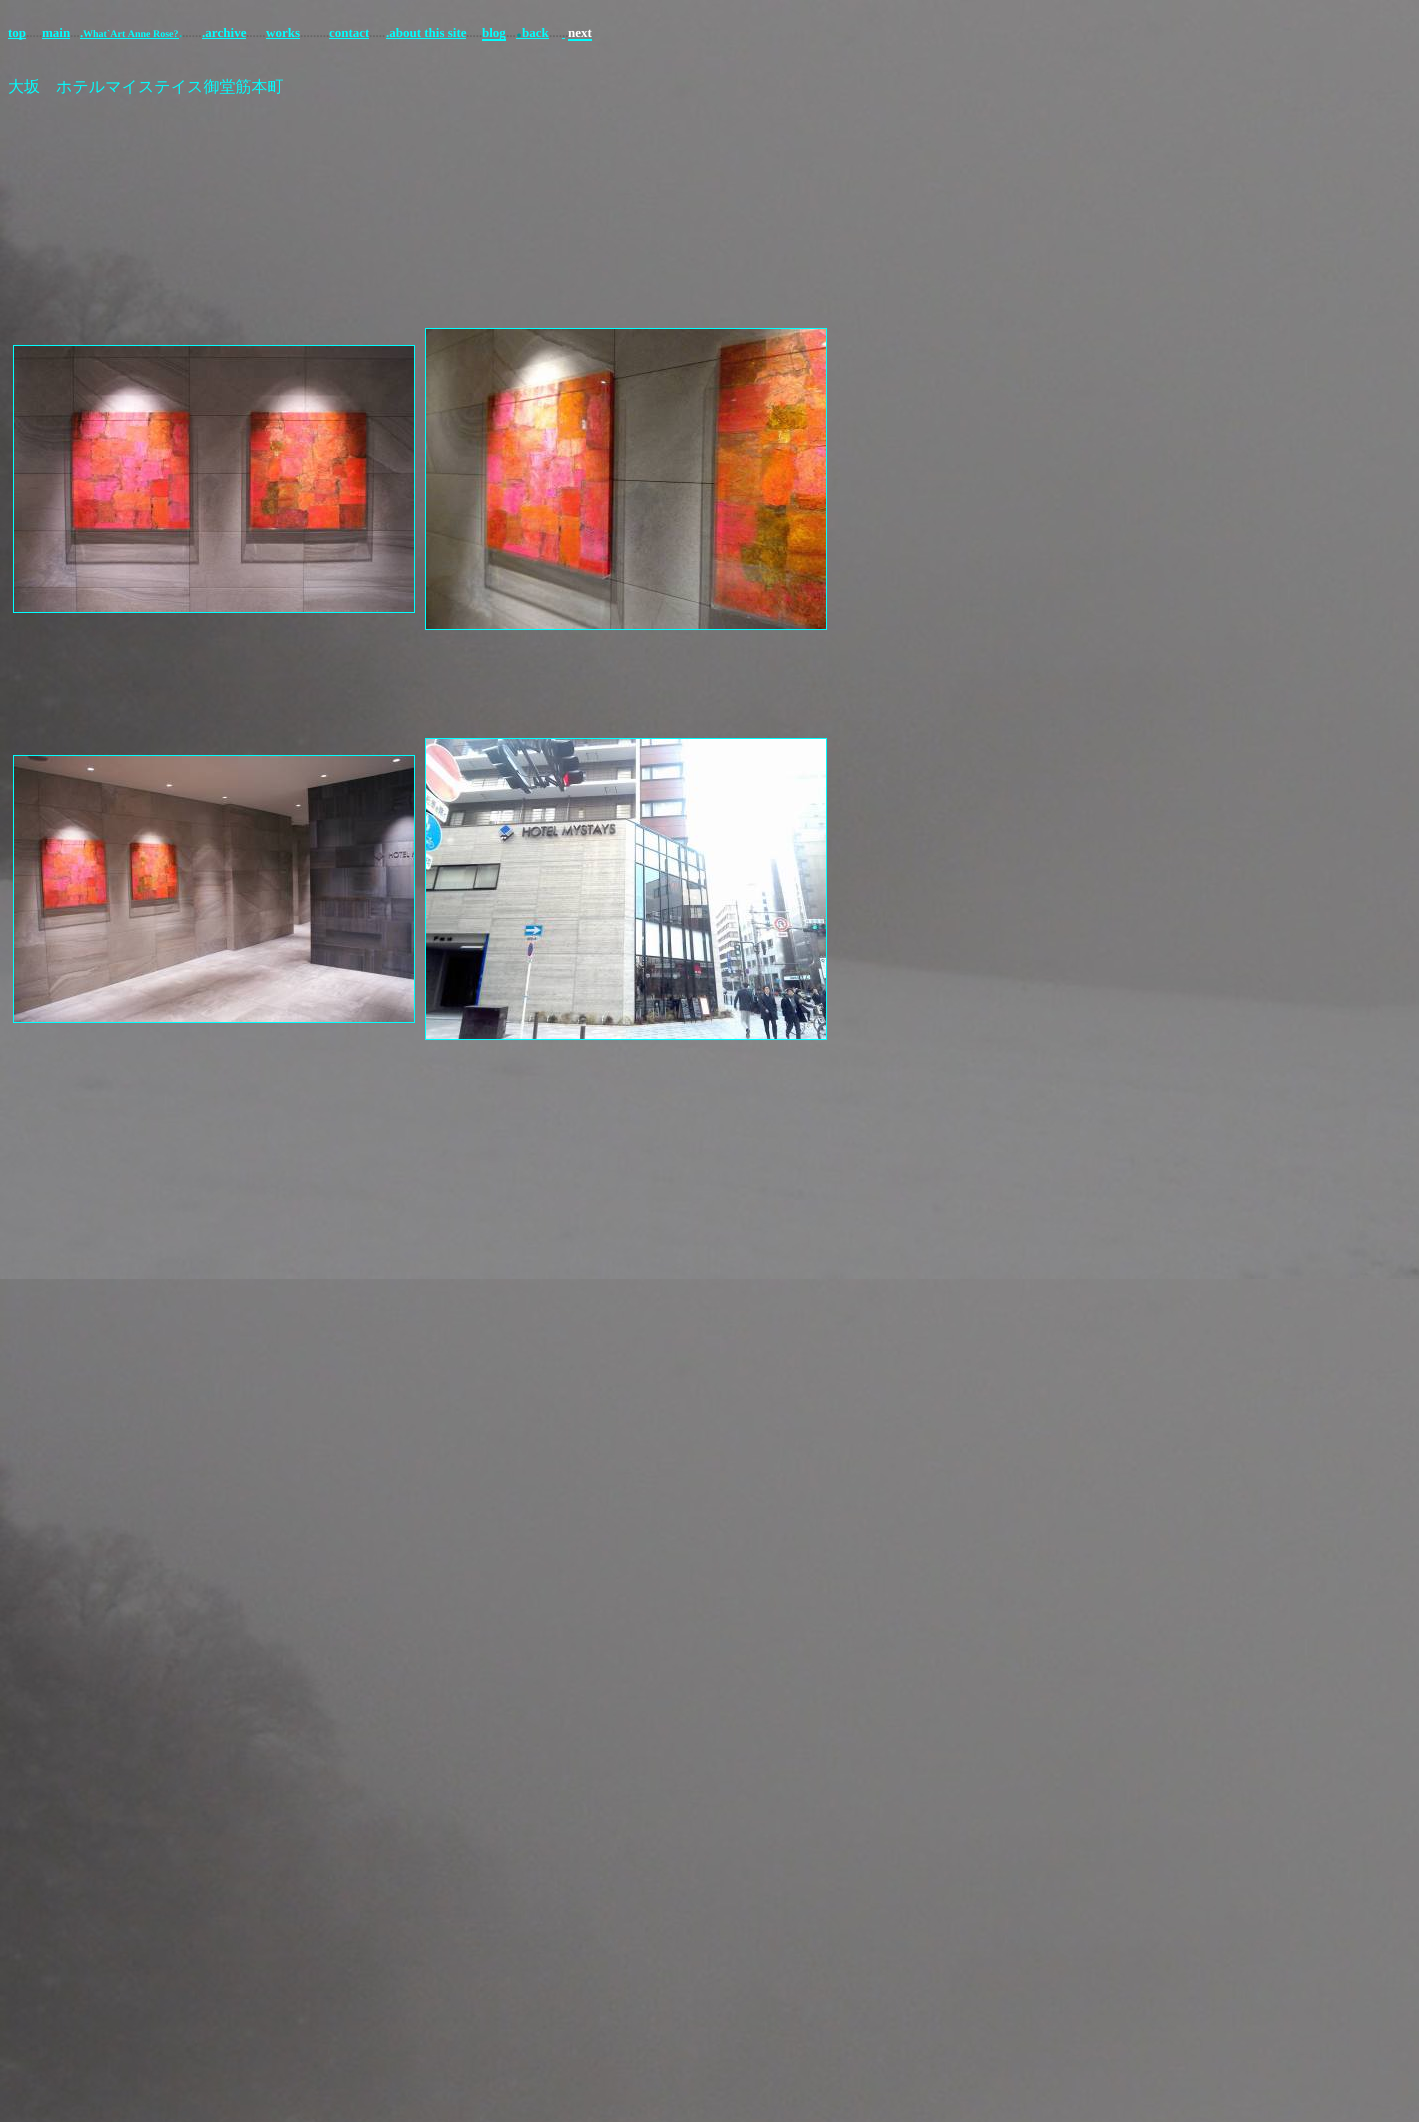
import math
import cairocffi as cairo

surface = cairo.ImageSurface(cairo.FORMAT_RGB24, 1419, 2122)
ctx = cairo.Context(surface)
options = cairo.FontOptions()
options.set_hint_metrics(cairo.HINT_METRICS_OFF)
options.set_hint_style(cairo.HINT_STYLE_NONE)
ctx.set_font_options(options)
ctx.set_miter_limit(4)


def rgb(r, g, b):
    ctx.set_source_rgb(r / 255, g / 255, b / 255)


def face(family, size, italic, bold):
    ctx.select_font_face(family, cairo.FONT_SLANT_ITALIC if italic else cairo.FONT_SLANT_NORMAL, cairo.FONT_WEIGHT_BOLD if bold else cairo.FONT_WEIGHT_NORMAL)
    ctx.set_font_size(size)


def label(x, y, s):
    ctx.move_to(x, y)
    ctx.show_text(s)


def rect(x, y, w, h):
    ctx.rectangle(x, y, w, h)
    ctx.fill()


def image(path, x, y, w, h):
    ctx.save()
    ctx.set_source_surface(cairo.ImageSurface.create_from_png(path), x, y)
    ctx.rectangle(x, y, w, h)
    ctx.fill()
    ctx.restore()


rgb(255, 255, 255)
ctx.paint()
image('image0.png', 0, 0, 1419, 2122)
rgb(0, 255, 255)
rect(8, 38, 18, 1)
face('Liberation Serif', 13, 0, 1)
label(8, 37, 'top')
rgb(102, 102, 102)
label(26, 37, '.....')
rgb(0, 255, 255)
rect(42, 38, 28, 1)
label(42, 37, 'main')
rgb(102, 102, 102)
label(70, 37, '...')
rgb(0, 255, 255)
rect(80, 38, 99, 1)
label(80, 37, '.')
face('Liberation Serif', 10, 0, 1)
label(83, 37, 'What`Art Anne Rose?')
face('Liberation Serif', 13, 0, 1)
rgb(0, 204, 204)
label(179, 37, '.')
rgb(102, 102, 102)
label(182, 37, '......')
rgb(0, 255, 255)
rect(202, 38, 44, 1)
label(202, 37, '.archive')
rgb(102, 102, 102)
label(246, 37, '......')
rgb(0, 255, 255)
rect(266, 38, 34, 1)
label(266, 37, 'works')
rgb(102, 102, 102)
label(300, 37, '.........')
rgb(0, 255, 255)
rect(329, 38, 40, 1)
label(329, 37, 'contact')
rgb(102, 102, 102)
label(369, 37, '.....')
rgb(0, 255, 255)
label(386, 37, '.about this site')
rgb(102, 102, 102)
label(466, 37, '.....')
rgb(0, 255, 255)
rect(386, 38, 80, 1)
rect(482, 39, 24, 2)
label(482, 37, 'blog')
rgb(102, 102, 102)
label(506, 37, '...')
face('Liberation Serif', 24, 0, 1)
rgb(0, 153, 153)
label(516, 37, '.')
rgb(0, 255, 255)
rect(516, 38, 33, 1)
face('Liberation Serif', 13, 0, 1)
label(522, 37, 'back')
rgb(102, 102, 102)
label(549, 37, '......')
rgb(255, 255, 255)
label(568, 37, 'next')
rgb(0, 255, 255)
rect(568, 39, 24, 2)
rect(562, 38, 3, 1)
face('WenQuanYi Zen Hei Medium', 16, 0, 0)
label(8, 92, '大坂　ホテルマイステイス御堂筋本町')
ctx.rectangle(13.5, 345.5, 401, 267)
ctx.set_line_width(1)
ctx.stroke()
image('image1.png', 14, 346, 400, 266)
ctx.rectangle(425.5, 328.5, 401, 301)
ctx.stroke()
image('image2.png', 426, 329, 400, 300)
ctx.rectangle(13.5, 755.5, 401, 267)
ctx.stroke()
image('image3.png', 14, 756, 400, 266)
ctx.rectangle(425.5, 738.5, 401, 301)
ctx.stroke()
image('image4.png', 426, 739, 400, 300)
surface.write_to_png('render.png')
